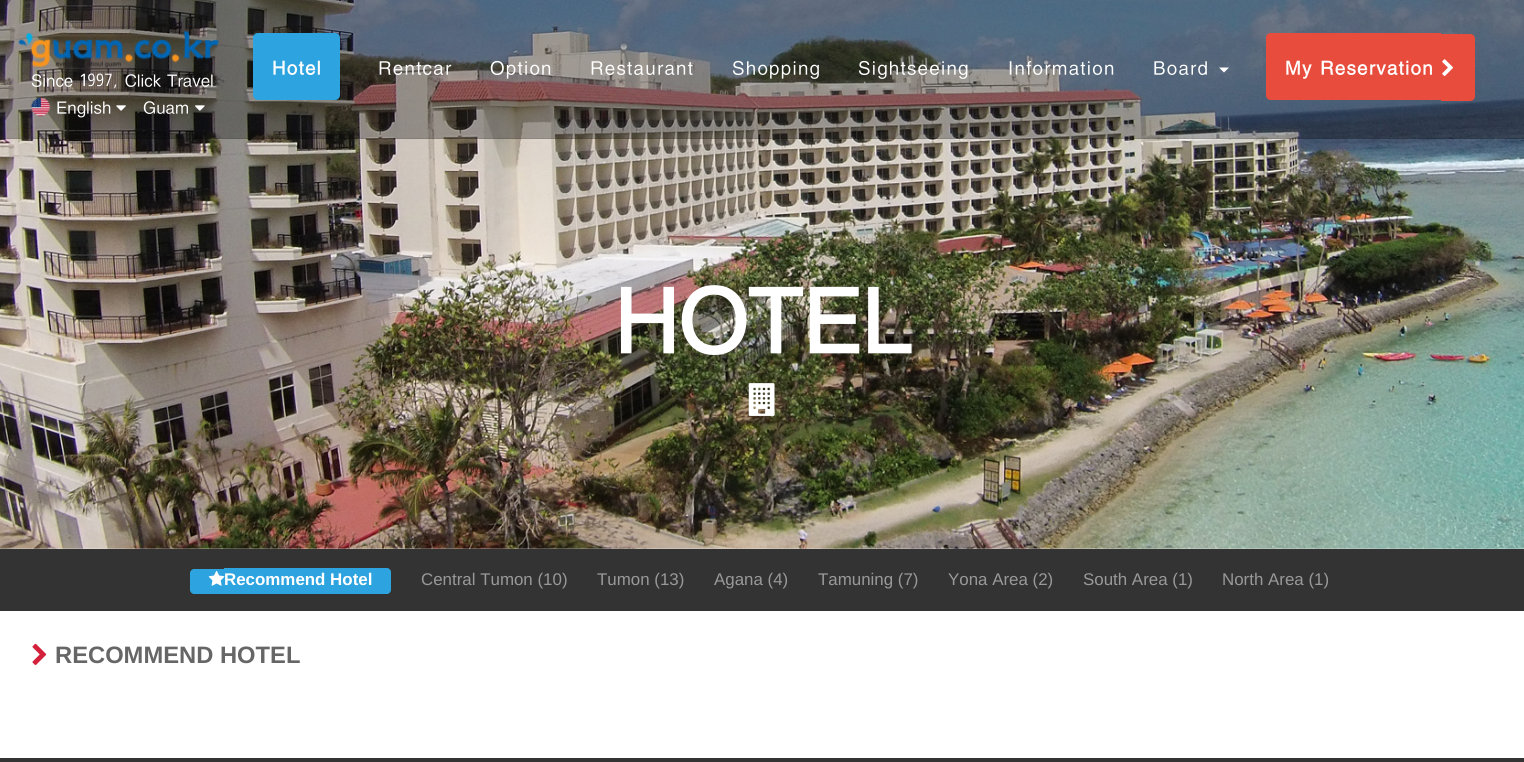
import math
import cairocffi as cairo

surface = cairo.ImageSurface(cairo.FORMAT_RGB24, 1524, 762)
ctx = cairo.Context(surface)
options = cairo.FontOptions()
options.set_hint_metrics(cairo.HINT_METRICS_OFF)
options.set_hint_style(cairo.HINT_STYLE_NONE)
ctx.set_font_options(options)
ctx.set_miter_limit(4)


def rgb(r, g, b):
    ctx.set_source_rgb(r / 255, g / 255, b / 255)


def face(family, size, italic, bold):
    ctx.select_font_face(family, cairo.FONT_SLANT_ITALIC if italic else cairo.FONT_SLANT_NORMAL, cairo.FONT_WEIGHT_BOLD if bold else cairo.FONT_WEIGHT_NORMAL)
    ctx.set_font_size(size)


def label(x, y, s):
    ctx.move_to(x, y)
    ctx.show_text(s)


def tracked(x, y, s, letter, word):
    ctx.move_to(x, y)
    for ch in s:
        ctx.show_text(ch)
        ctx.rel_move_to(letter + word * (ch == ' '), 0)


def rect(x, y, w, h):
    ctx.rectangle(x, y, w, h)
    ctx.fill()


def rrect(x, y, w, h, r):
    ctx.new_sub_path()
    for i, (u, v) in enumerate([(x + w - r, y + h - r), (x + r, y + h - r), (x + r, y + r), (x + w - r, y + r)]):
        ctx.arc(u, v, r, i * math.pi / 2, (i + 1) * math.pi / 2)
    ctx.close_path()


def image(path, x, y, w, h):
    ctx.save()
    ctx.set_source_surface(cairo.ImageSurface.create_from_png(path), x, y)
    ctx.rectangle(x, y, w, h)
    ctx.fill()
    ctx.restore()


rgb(255, 255, 255)
ctx.paint()
image('image5.png', 0, 0, 1524, 549)
ctx.set_source_rgba(0.02, 0.02, 0.02, 0.3)
rect(0, 0, 1524, 139)
ctx.set_source_rgba(0, 0, 0, 0.1)
rect(0, 138, 1524, 1)
rgb(45, 163, 224)
rrect(253, 33, 87, 67, 5)
ctx.fill()
face('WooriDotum', 18.75, 0, 1)
rgb(255, 255, 255)
tracked(272, 74, 'Hotel', 1.25, 0)
face('WooriDotum', 18.75, 0, 0)
tracked(378, 74, 'Rentcar', 1.25, 0)
tracked(490, 74, 'Option', 1.25, 0)
tracked(590, 74, 'Restaurant', 1.25, 0)
tracked(732, 74, 'Shopping', 1.25, 0)
tracked(858, 74, 'Sightseeing', 1.25, 0)
tracked(1008, 74, 'Information', 1.25, 0)
tracked(1153, 74, 'Board', 1.25, 0)
ctx.new_path()
ctx.move_to(1219, 67.5)
ctx.line_to(1229, 67.5)
ctx.line_to(1224, 72.5)
ctx.close_path()
ctx.fill()
rgb(231, 76, 60)
ctx.new_path()
ctx.move_to(1271, 33)
ctx.line_to(1441, 33)
ctx.line_to(1441, 100)
ctx.line_to(1271, 100)
ctx.curve_to(1268, 100, 1266, 98, 1266, 95)
ctx.line_to(1266, 38)
ctx.curve_to(1266, 35, 1268, 33, 1271, 33)
ctx.close_path()
ctx.fill()
ctx.new_path()
ctx.move_to(1441, 34)
ctx.line_to(1470, 34)
ctx.curve_to(1473, 34, 1475, 36, 1475, 39)
ctx.line_to(1475, 96)
ctx.curve_to(1475, 99, 1473, 101, 1470, 101)
ctx.line_to(1441, 101)
ctx.close_path()
ctx.fill()
face('WooriDotum', 18.75, 0, 1)
rgb(255, 255, 255)
tracked(1285, 74, 'My Reservation', 1.25, 0)
image('image0.png', 1442, 59, 11, 17)
image('image1.png', 18, 31, 201, 37)
face('WooriDotum', 16.9, 0, 0)
label(31, 86, 'Since 1997, Click Travel')
image('image2.png', 30, 97, 21, 20)
label(56, 113, 'English')
image('image3.png', 116, 105, 10, 6)
label(143, 113, 'Guam')
image('image4.png', 195, 105, 10, 6)
face('WooriDotum', 89, 0, 1)
label(614, 350, 'HOTEL')
image('image6.png', 748, 383, 27, 33)
rgb(51, 51, 51)
rect(0, 549, 1524, 62)
rgb(45, 163, 224)
ctx.new_path()
ctx.move_to(194, 569)
ctx.line_to(224, 569)
ctx.line_to(224, 594)
ctx.line_to(194, 594)
ctx.curve_to(192, 594, 190, 592, 190, 590)
ctx.line_to(190, 573)
ctx.curve_to(190, 571, 192, 569, 194, 569)
ctx.close_path()
ctx.fill()
ctx.new_path()
ctx.move_to(224, 568)
ctx.line_to(387, 568)
ctx.curve_to(389, 568, 391, 570, 391, 572)
ctx.line_to(391, 590)
ctx.curve_to(391, 592, 389, 594, 387, 594)
ctx.line_to(224, 594)
ctx.close_path()
ctx.fill()
image('image7.png', 208, 570, 17, 16)
face('Liberation Sans', 16.9, 0, 1)
rgb(255, 255, 255)
label(224, 585, 'Recommend Hotel')
face('Liberation Sans', 16.9, 0, 0)
rgb(153, 153, 153)
label(421, 585, 'Central Tumon (10)')
label(597, 585, 'Tumon (13)')
label(714, 585, 'Agana (4)')
label(818, 585, 'Tamuning (7)')
label(948, 585, 'Yona Area (2)')
label(1083, 585, 'South Area (1)')
label(1222, 585, 'North Area (1)')
image('image8.png', 32, 643, 15, 23)
face('Liberation Sans', 23.75, 0, 1)
rgb(102, 102, 102)
label(55, 663, 'RECOMMEND HOTEL')
rgb(51, 51, 51)
rect(0, 758, 1524, 4)
surface.write_to_png('render.png')
